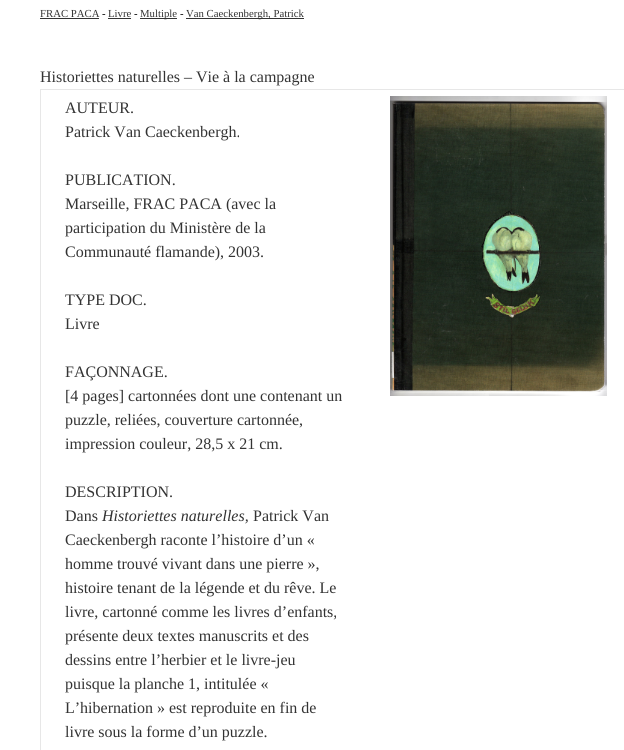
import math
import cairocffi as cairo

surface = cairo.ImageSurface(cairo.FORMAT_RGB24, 624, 750)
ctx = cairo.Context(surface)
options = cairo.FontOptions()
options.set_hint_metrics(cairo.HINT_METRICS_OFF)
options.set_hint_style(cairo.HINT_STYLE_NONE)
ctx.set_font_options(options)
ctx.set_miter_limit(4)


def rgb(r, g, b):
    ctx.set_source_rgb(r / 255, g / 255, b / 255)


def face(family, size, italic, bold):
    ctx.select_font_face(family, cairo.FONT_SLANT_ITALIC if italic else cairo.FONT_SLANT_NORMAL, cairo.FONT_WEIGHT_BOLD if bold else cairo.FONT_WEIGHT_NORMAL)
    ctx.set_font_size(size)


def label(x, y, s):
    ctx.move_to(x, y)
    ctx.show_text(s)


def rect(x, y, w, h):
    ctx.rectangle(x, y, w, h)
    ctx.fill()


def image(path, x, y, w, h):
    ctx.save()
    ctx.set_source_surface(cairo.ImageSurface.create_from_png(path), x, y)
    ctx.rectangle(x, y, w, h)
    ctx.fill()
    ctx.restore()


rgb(255, 255, 255)
ctx.paint()
face('Liberation Serif', 10.75, 0, 0)
rgb(51, 51, 51)
label(40, 17, 'FRAC PACA')
rect(40, 18, 59, 1)
rgb(0, 0, 0)
label(102, 17, '-')
rgb(51, 51, 51)
label(108, 17, 'Livre')
rect(108, 18, 23, 1)
rgb(0, 0, 0)
label(134, 17, '-')
rgb(51, 51, 51)
rect(140, 18, 37, 1)
label(140, 17, 'Multiple')
rgb(0, 0, 0)
label(180, 17, '-')
rgb(51, 51, 51)
rect(186, 18, 118, 1)
label(186, 17, 'Van Caeckenbergh, Patrick')
face('Liberation Serif', 16, 0, 0)
label(40, 82, 'Historiettes naturelles – Vie à la campagne')
rgb(231, 231, 231)
rect(40, 89, 584, 1)
rect(40, 89, 1, 661)
rgb(51, 51, 51)
label(65, 113, 'AUTEUR.')
label(65, 137, 'Patrick Van Caeckenbergh.')
label(65, 185, 'PUBLICATION.')
label(65, 209, 'Marseille, FRAC PACA (avec la')
label(65, 233, 'participation du Ministère de la')
label(65, 257, 'Communauté flamande), 2003.')
label(65, 305, 'TYPE DOC.')
label(65, 329, 'Livre')
label(65, 377, 'FAÇONNAGE.')
label(65, 401, '[4 pages] cartonnées dont une contenant un')
label(65, 425, 'puzzle, reliées, couverture cartonnée,')
label(65, 449, 'impression couleur, 28,5 x 21 cm.')
label(65, 497, 'DESCRIPTION.')
label(65, 521, 'Dans')
face('Liberation Serif', 16, 1, 0)
label(102, 521, 'Historiettes naturelles,')
face('Liberation Serif', 16, 0, 0)
label(253, 521, 'Patrick Van')
label(65, 545, 'Caeckenbergh raconte l’histoire d’un «')
label(65, 569, 'homme trouvé vivant dans une pierre »,')
label(65, 593, 'histoire tenant de la légende et du rêve. Le')
label(65, 617, 'livre, cartonné comme les livres d’enfants,')
label(65, 641, 'présente deux textes manuscrits et des')
label(65, 665, 'dessins entre l’herbier et le livre-jeu')
label(65, 689, 'puisque la planche 1, intitulée «')
label(65, 713, 'L’hibernation » est reproduite en fin de')
label(65, 737, 'livre sous la forme d’un puzzle.')
image('image0.png', 390, 96, 217, 300)
surface.write_to_png('render.png')
